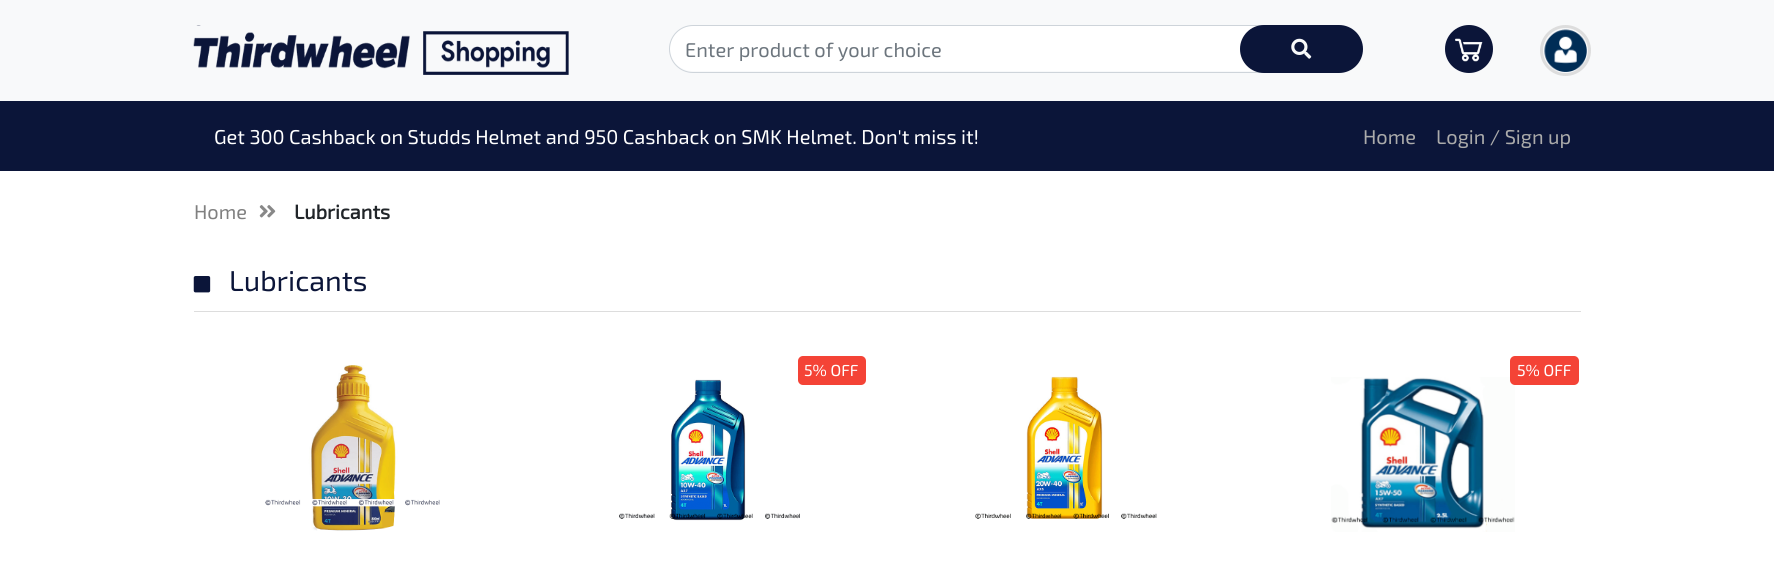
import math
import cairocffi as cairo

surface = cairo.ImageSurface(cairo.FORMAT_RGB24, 1774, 567)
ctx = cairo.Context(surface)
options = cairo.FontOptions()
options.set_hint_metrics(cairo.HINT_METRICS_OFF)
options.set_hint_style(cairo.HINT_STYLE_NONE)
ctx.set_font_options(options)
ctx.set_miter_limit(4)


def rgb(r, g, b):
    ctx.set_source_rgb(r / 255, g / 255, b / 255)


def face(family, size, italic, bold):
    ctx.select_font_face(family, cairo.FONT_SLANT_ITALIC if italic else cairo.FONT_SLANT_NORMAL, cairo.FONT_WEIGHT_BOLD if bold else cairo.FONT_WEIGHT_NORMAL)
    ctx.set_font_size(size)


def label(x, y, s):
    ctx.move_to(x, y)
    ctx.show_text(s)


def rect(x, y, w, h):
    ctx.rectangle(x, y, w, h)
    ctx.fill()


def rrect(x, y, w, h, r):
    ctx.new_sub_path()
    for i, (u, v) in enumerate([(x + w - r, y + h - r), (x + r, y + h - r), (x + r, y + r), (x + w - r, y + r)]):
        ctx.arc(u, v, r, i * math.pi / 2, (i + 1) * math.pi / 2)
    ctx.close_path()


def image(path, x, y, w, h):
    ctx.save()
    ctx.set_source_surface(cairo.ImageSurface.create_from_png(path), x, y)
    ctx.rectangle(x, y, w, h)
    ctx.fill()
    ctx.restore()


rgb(255, 255, 255)
ctx.paint()
rgb(248, 249, 250)
rect(0, 0, 1774, 101)
image('image0.png', 193, 25, 376, 50)
rgb(255, 255, 255)
rrect(670, 26, 673, 45, 22.5)
ctx.fill()
rrect(669.5, 25.5, 674, 47, 23.5)
rgb(206, 212, 218)
ctx.set_line_width(1)
ctx.stroke()
face('Exo 2', 20, 0, 0)
rgb(108, 117, 125)
label(685, 57, 'Enter product of your choice')
rgb(11, 21, 57)
rrect(1240, 25, 123, 48, 24)
ctx.fill()
image('image1.png', 1291, 38, 21, 21)
ctx.arc(1469, 49, 24, 0, 2 * math.pi)
ctx.fill()
image('image2.png', 1455, 38, 28, 24)
ctx.arc(1565.5, 50.5, 24, 0, 2 * math.pi)
rgb(221, 221, 221)
ctx.set_line_width(3)
ctx.stroke()
image('image3.png', 1544, 29, 43, 43)
rgb(11, 21, 57)
rect(0, 101, 1774, 70)
rgb(255, 255, 255)
label(214, 144, 'Get 300 Cashback on Studds Helmet and 950 Cashback on SMK Helmet. Don\'t miss it!')
rgb(171, 171, 171)
label(1363, 144, 'Home')
label(1436, 144, 'Login / Sign up')
rgb(128, 128, 128)
label(194, 219, 'Home')
image('image4.png', 259, 205, 17, 13)
face('Exo 2', 20, 0, 1)
rgb(33, 37, 41)
label(294, 219, 'Lubricants')
rgb(221, 221, 221)
rect(194, 311, 1387, 1)
image('image5.png', 193, 276, 18, 17)
face('Exo 2', 28.75, 0, 0)
rgb(11, 21, 57)
label(229, 291, 'Lubricants')
image('image6.png', 265, 365, 175, 166)
image('image7.png', 619, 379, 181, 142)
rgb(244, 67, 54)
rrect(798, 356, 68, 29, 5)
ctx.fill()
face('Exo 2', 16, 0, 0)
rgb(255, 255, 255)
label(804, 376, '5% OFF')
image('image8.png', 975, 376, 182, 143)
image('image9.png', 1331, 377, 184, 155)
rgb(244, 67, 54)
rrect(1510, 356, 69, 29, 5)
ctx.fill()
rgb(255, 255, 255)
label(1517, 376, '5% OFF')
surface.write_to_png('render.png')
